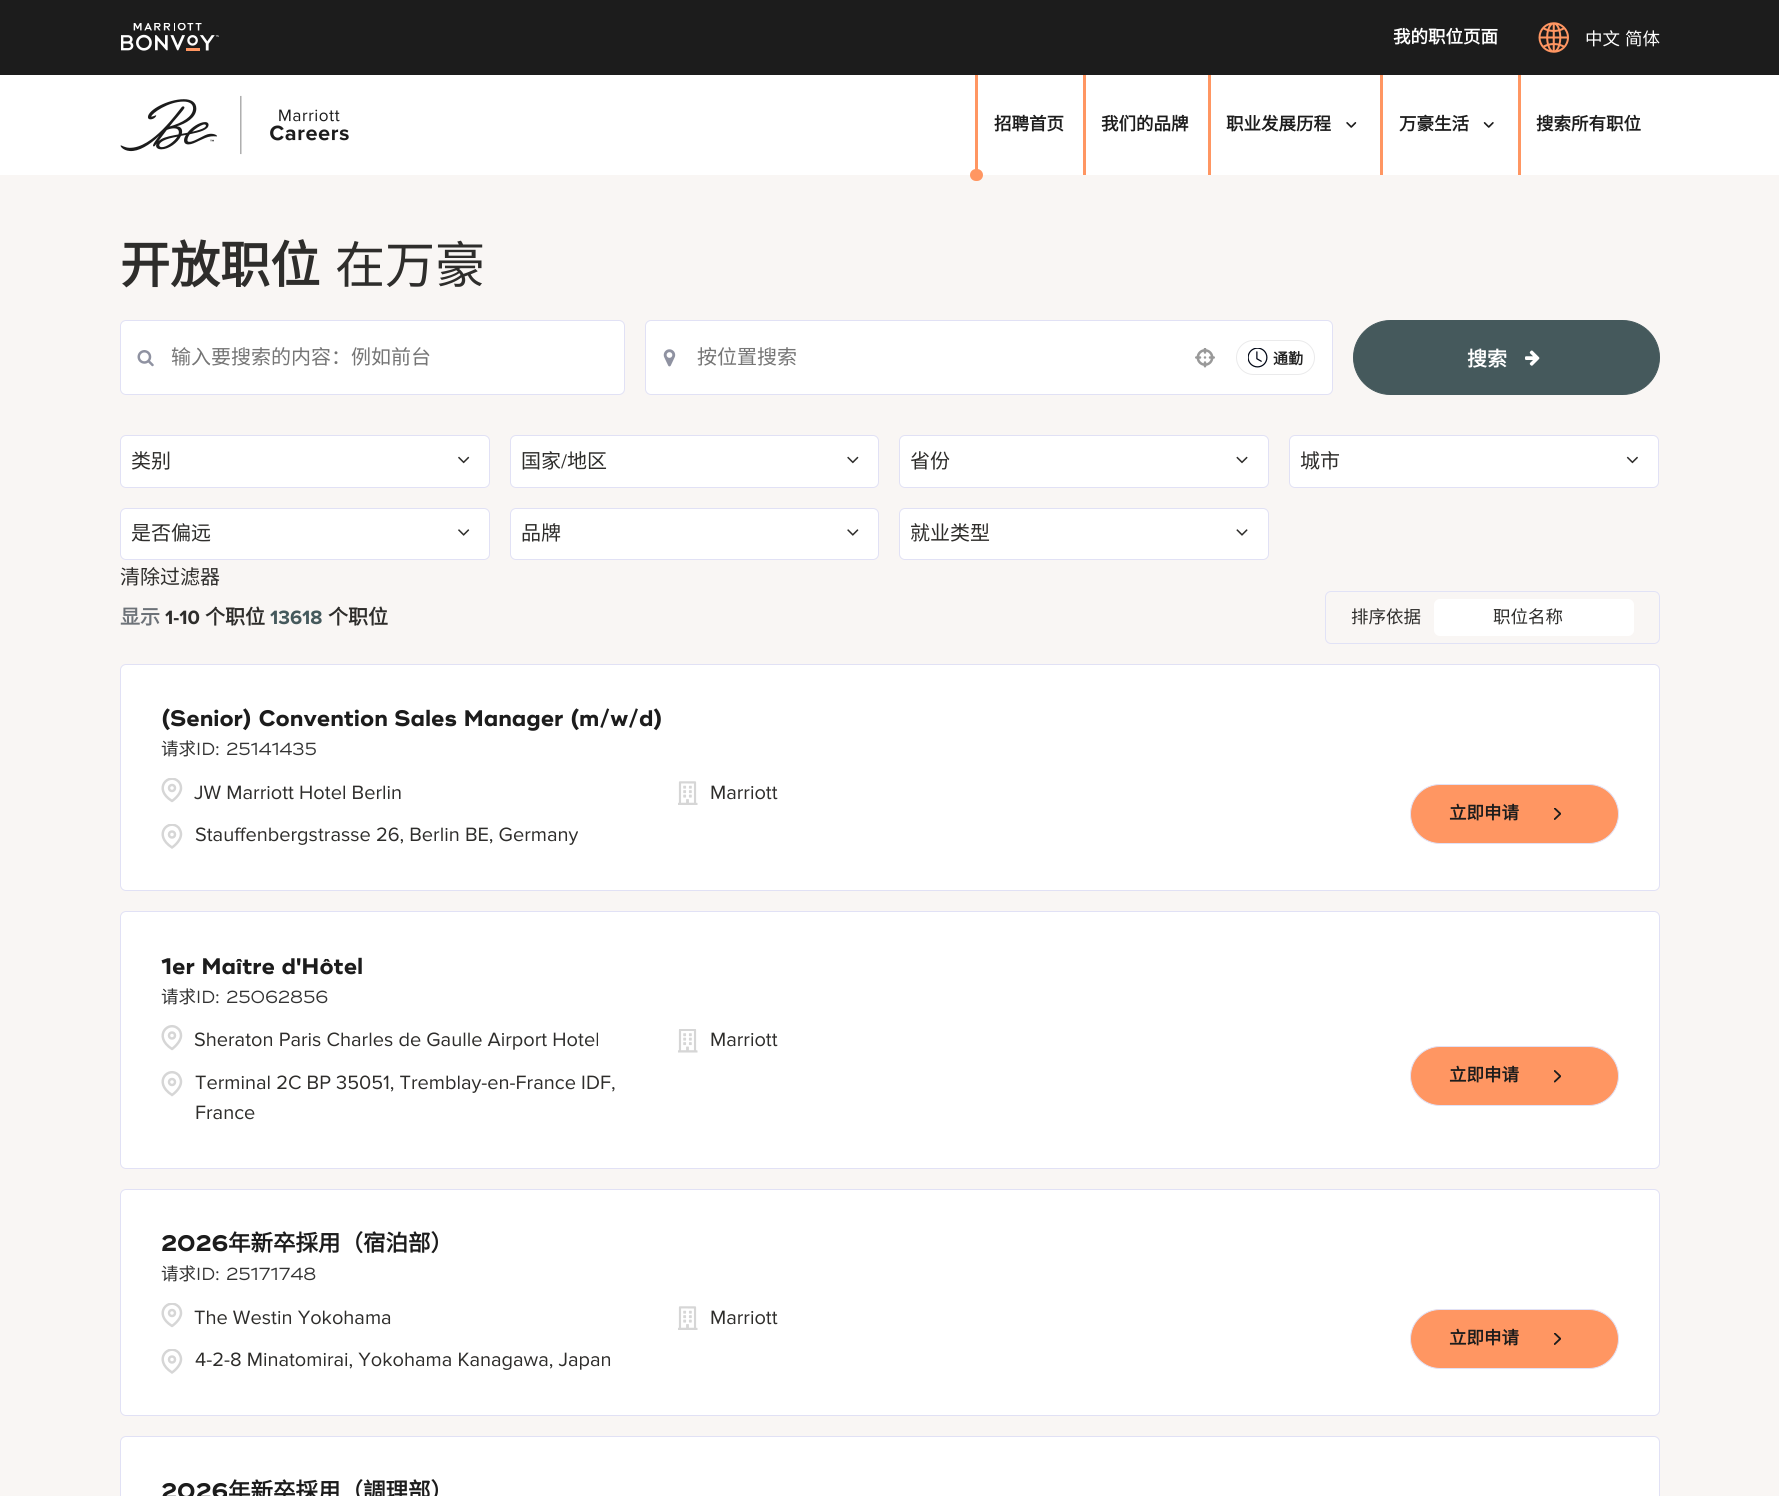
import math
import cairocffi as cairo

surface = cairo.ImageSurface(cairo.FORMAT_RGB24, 1779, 1496)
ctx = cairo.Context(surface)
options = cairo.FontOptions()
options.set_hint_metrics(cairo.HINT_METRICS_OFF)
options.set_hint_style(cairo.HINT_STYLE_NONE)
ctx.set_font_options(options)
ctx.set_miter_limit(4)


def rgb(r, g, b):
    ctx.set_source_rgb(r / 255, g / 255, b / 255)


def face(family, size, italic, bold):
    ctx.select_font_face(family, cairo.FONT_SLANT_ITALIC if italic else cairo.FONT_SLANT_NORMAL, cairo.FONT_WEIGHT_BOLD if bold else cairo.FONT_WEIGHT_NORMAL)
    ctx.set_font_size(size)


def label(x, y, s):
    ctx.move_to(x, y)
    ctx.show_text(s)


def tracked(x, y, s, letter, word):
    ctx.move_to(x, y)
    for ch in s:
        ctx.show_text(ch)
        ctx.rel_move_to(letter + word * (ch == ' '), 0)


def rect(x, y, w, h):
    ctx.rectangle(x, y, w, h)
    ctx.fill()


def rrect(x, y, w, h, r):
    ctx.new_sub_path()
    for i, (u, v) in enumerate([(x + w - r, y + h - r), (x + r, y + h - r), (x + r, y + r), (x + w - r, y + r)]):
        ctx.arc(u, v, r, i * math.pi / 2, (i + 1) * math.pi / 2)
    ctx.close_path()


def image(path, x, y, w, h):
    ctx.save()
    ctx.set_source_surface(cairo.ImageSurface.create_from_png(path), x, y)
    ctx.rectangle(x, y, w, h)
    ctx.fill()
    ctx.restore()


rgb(255, 255, 255)
ctx.paint()
rgb(28, 28, 28)
rect(0, 0, 1779, 75)
image('image0.png', 121, 23, 98, 28)
face('Noto Sans CJK SC', 17.5, 0, 1)
rgb(255, 255, 255)
label(1393, 43, '我的职位页面')
image('image1.png', 1538, 22, 31, 31)
face('Noto Sans CJK SC', 17.5, 0, 0)
tracked(1585, 45, '中文 简体', 0, 1)
image('image2.png', 120, 95, 229, 60)
rgb(255, 150, 98)
rect(975, 75, 3, 100)
face('Noto Sans CJK SC', 17.5, 0, 1)
rgb(28, 28, 28)
label(994, 130, '招聘首页')
rgb(249, 246, 244)
rect(0, 175, 1779, 1321)
rgb(255, 150, 98)
rrect(970, 169, 13, 12, 6)
ctx.fill()
rect(1083, 75, 3, 100)
rgb(28, 28, 28)
label(1101, 130, '我们的品牌')
rgb(255, 150, 98)
rect(1208, 75, 3, 100)
rgb(28, 28, 28)
label(1226, 130, '职业发展历程')
image('image3.png', 1346, 122, 11, 6)
rgb(255, 150, 98)
rect(1380, 75, 3, 100)
rgb(28, 28, 28)
label(1399, 130, '万豪生活')
image('image4.png', 1483, 122, 11, 6)
rgb(255, 150, 98)
rect(1518, 75, 3, 100)
rgb(28, 28, 28)
label(1536, 130, '搜索所有职位')
face('Noto Sans CJK SC', 50, 0, 1)
rgb(46, 45, 43)
label(120, 283, '开放职位')
face('Noto Sans CJK SC', 50, 0, 0)
label(335, 283, '在万豪')
rgb(255, 255, 255)
rrect(120.5, 320.5, 504, 74, 5.5)
ctx.fill_preserve()
rgb(225, 225, 245)
ctx.set_line_width(1)
ctx.stroke()
image('image5.png', 137, 350, 17, 17)
face('Noto Sans CJK SC', 20, 0, 0)
rgb(117, 117, 117)
label(171, 364, '输入要搜索的内容：例如前台')
rgb(255, 255, 255)
rrect(645.5, 320.5, 687, 74, 5.5)
ctx.fill_preserve()
rgb(225, 225, 245)
ctx.stroke()
image('image6.png', 663, 349, 13, 18)
rgb(117, 117, 117)
label(697, 364, '按位置搜索')
image('image7.png', 1195, 348, 20, 20)
rrect(1236.5, 340.5, 78, 34, 17)
rgb(234, 234, 235)
ctx.stroke()
image('image8.png', 1248, 348, 20, 20)
face('Noto Sans CJK SC', 15, 0, 1)
rgb(34, 34, 34)
label(1273, 364, '通勤')
rgb(69, 89, 92)
rrect(1353.5, 320.5, 306, 74, 37)
ctx.fill_preserve()
ctx.stroke()
face('Noto Sans CJK SC', 20, 0, 1)
rgb(255, 255, 255)
label(1467, 366, '搜索')
image('image9.png', 1525, 350, 15, 16)
rrect(120.5, 435.5, 369, 52, 5.5)
ctx.fill_preserve()
rgb(225, 225, 245)
ctx.stroke()
face('Noto Sans CJK SC', 20, 0, 0)
rgb(46, 45, 43)
label(131, 468, '类别')
image('image10.png', 458, 456, 12, 8)
rgb(255, 255, 255)
rrect(510.5, 435.5, 368, 52, 5.5)
ctx.fill_preserve()
rgb(225, 225, 245)
ctx.stroke()
rgb(46, 45, 43)
label(521, 468, '国家')
face('Proxima Nova', 20, 0, 0)
label(561, 468, '/')
face('Noto Sans CJK SC', 20, 0, 0)
label(567, 468, '地区')
image('image11.png', 847, 456, 12, 8)
rgb(255, 255, 255)
rrect(899.5, 435.5, 369, 52, 5.5)
ctx.fill_preserve()
rgb(225, 225, 245)
ctx.stroke()
rgb(46, 45, 43)
label(910, 468, '省份')
image('image12.png', 1236, 456, 12, 8)
rgb(255, 255, 255)
rrect(1289.5, 435.5, 369, 52, 5.5)
ctx.fill_preserve()
rgb(225, 225, 245)
ctx.stroke()
rgb(46, 45, 43)
label(1300, 468, '城市')
image('image13.png', 1626, 456, 12, 8)
rgb(255, 255, 255)
rrect(120.5, 508.5, 369, 51, 5.5)
ctx.fill_preserve()
rgb(225, 225, 245)
ctx.stroke()
rgb(46, 45, 43)
label(131, 540, '是否偏远')
image('image14.png', 458, 529, 12, 7)
rgb(255, 255, 255)
rrect(510.5, 508.5, 368, 51, 5.5)
ctx.fill_preserve()
rgb(225, 225, 245)
ctx.stroke()
rgb(46, 45, 43)
label(521, 540, '品牌')
image('image15.png', 847, 529, 12, 7)
rgb(255, 255, 255)
rrect(899.5, 508.5, 369, 51, 5.5)
ctx.fill_preserve()
rgb(225, 225, 245)
ctx.stroke()
rgb(46, 45, 43)
label(910, 540, '就业类型')
image('image16.png', 1236, 529, 12, 7)
label(120, 584, '清除过滤器')
face('Noto Sans CJK SC', 20, 0, 1)
rgb(109, 114, 120)
label(120, 624, '显示')
face('Proxima Nova', 20, 0, 1)
rgb(46, 45, 43)
label(165, 624, '1-10')
face('Noto Sans CJK SC', 20, 0, 1)
label(205, 624, '个职位')
face('Proxima Nova', 20, 0, 1)
rgb(69, 89, 92)
label(270, 624, '13618')
face('Noto Sans CJK SC', 20, 0, 1)
rgb(46, 45, 43)
label(328, 624, '个职位')
rrect(1325.5, 591.5, 334, 52, 5.5)
rgb(225, 226, 246)
ctx.stroke()
face('Noto Sans CJK SC', 17.5, 0, 0)
rgb(46, 45, 43)
label(1351, 623, '排序依据')
rgb(255, 255, 255)
rrect(1434, 599, 200, 37, 6)
ctx.fill()
rgb(46, 45, 43)
label(1493, 623, '职位名称')
rgb(255, 255, 255)
rrect(120.5, 664.5, 1539, 226, 5.5)
ctx.fill_preserve()
rgb(225, 225, 245)
ctx.stroke()
face('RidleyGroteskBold', 22.5, 0, 1)
rgb(28, 28, 28)
label(161, 726, '(Senior) Convention Sales Manager (m/w/d)')
face('Noto Sans CJK SC', 17.5, 0, 0)
rgb(51, 51, 51)
label(161, 755, '请求')
face('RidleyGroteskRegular', 17.5, 0, 0)
label(196, 755, 'ID:')
label(226, 755, '25141435')
ctx.save()
ctx.rectangle(161, 778, 22, 25)
ctx.clip()
ctx.new_path()
ctx.move_to(181, 788)
ctx.curve_to(181, 795, 172, 801, 172, 801)
ctx.curve_to(152, 788.5, 169, 772, 178.5, 781.5)
ctx.curve_to(180, 783, 181, 785.5, 181, 788)
ctx.close_path()
rgb(214, 214, 214)
ctx.set_line_width(2.5)
ctx.set_line_cap(cairo.LINE_CAP_ROUND)
ctx.set_line_join(cairo.LINE_JOIN_ROUND)
ctx.stroke()
ctx.restore()
ctx.arc(172, 788, 3, 0, 2 * math.pi)
rgb(214, 214, 214)
ctx.set_line_width(2.5)
ctx.stroke()
face('Proxima Nova', 20, 0, 0)
rgb(46, 45, 43)
label(194, 799, 'JW Marriott Hotel Berlin')
image('image17.png', 678, 781, 20, 24)
label(710, 799, 'Marriott')
ctx.save()
ctx.rectangle(161, 824, 22, 25)
ctx.clip()
ctx.new_path()
ctx.move_to(181, 834)
ctx.curve_to(181, 841.5, 172, 847.5, 172, 847.5)
ctx.curve_to(152, 834.5, 169, 818, 178.5, 827.5)
ctx.curve_to(180, 829.5, 181, 832, 181, 834)
ctx.close_path()
rgb(214, 214, 214)
ctx.stroke()
ctx.restore()
ctx.arc(172, 834.5, 3, 0, 2 * math.pi)
rgb(214, 214, 214)
ctx.stroke()
rgb(46, 45, 43)
label(195, 841, 'Stauffenbergstrasse 26, Berlin BE, Germany')
rgb(255, 150, 98)
rrect(1410.5, 784.5, 208, 59, 29.5)
ctx.fill_preserve()
rgb(225, 225, 245)
ctx.set_line_width(1)
ctx.stroke()
face('Noto Sans CJK SC', 17.5, 0, 1)
rgb(28, 28, 28)
label(1449, 819, '立即申请')
image('image18.png', 1554, 808, 7, 12)
rgb(255, 255, 255)
rrect(120.5, 911.5, 1539, 257, 5.5)
ctx.fill_preserve()
rgb(225, 225, 245)
ctx.stroke()
face('RidleyGroteskBold', 22.5, 0, 1)
rgb(28, 28, 28)
label(161, 974, '1er Maître d\'Hôtel')
face('Noto Sans CJK SC', 17.5, 0, 0)
rgb(51, 51, 51)
label(161, 1003, '请求')
face('RidleyGroteskRegular', 17.5, 0, 0)
label(196, 1003, 'ID:')
label(226, 1003, '25062856')
ctx.new_path()
ctx.move_to(181, 1035.5)
ctx.curve_to(181, 1042.5, 172, 1049, 172, 1049)
ctx.curve_to(152, 1036, 169, 1019.5, 178.5, 1029)
ctx.curve_to(180, 1030.5, 181, 1033, 181, 1035.5)
ctx.close_path()
rgb(214, 214, 214)
ctx.set_line_width(2.5)
ctx.set_line_cap(cairo.LINE_CAP_ROUND)
ctx.set_line_join(cairo.LINE_JOIN_ROUND)
ctx.stroke()
ctx.arc(172, 1035.5, 3, 0, 2 * math.pi)
ctx.set_line_cap(cairo.LINE_CAP_BUTT)
ctx.set_line_join(cairo.LINE_JOIN_MITER)
ctx.stroke()
face('Proxima Nova', 20, 0, 0)
rgb(46, 45, 43)
label(194, 1046, 'Sheraton Paris Charles de Gaulle Airport Hotel')
image('image19.png', 678, 1029, 20, 24)
label(710, 1046, 'Marriott')
ctx.new_path()
ctx.move_to(181, 1081.5)
ctx.curve_to(181, 1089, 172, 1095, 172, 1095)
ctx.curve_to(152, 1082, 169, 1065.5, 178.5, 1075)
ctx.curve_to(180, 1077, 181, 1079.5, 181, 1081.5)
ctx.close_path()
rgb(214, 214, 214)
ctx.stroke()
ctx.arc(172, 1082, 3, 0, 2 * math.pi)
ctx.stroke()
rgb(46, 45, 43)
label(195, 1089, 'Terminal 2C BP 35051, Tremblay-en-France IDF,')
label(195, 1119, 'France')
rgb(255, 150, 98)
rrect(1410.5, 1046.5, 208, 59, 29.5)
ctx.fill_preserve()
rgb(225, 225, 245)
ctx.set_line_width(1)
ctx.stroke()
face('Noto Sans CJK SC', 17.5, 0, 1)
rgb(28, 28, 28)
label(1449, 1081, '立即申请')
image('image20.png', 1554, 1070, 7, 13)
rgb(255, 255, 255)
rrect(120.5, 1189.5, 1539, 226, 5.5)
ctx.fill_preserve()
rgb(225, 225, 245)
ctx.stroke()
face('RidleyGroteskBold', 22.5, 0, 1)
rgb(28, 28, 28)
label(161, 1251, '2026')
face('Noto Sans CJK SC', 22.5, 0, 1)
label(228, 1251, '年新卒採用（宿泊部）')
face('Noto Sans CJK SC', 17.5, 0, 0)
rgb(51, 51, 51)
label(161, 1280, '请求')
face('RidleyGroteskRegular', 17.5, 0, 0)
label(196, 1280, 'ID:')
label(226, 1280, '25171748')
ctx.save()
ctx.rectangle(161, 1303, 22, 25)
ctx.clip()
ctx.new_path()
ctx.move_to(181, 1313)
ctx.curve_to(181, 1320, 172, 1326, 172, 1326)
ctx.curve_to(152, 1313.5, 169, 1297, 178.5, 1306.5)
ctx.curve_to(180, 1308, 181, 1310.5, 181, 1313)
ctx.close_path()
rgb(214, 214, 214)
ctx.set_line_width(2.5)
ctx.set_line_cap(cairo.LINE_CAP_ROUND)
ctx.set_line_join(cairo.LINE_JOIN_ROUND)
ctx.stroke()
ctx.restore()
ctx.arc(172, 1313, 3, 0, 2 * math.pi)
rgb(214, 214, 214)
ctx.set_line_width(2.5)
ctx.stroke()
face('Proxima Nova', 20, 0, 0)
rgb(46, 45, 43)
label(194, 1324, 'The Westin Yokohama')
image('image17.png', 678, 1306, 20, 24)
label(710, 1324, 'Marriott')
ctx.save()
ctx.rectangle(161, 1349, 22, 25)
ctx.clip()
ctx.new_path()
ctx.move_to(181, 1359)
ctx.curve_to(181, 1366.5, 172, 1372.5, 172, 1372.5)
ctx.curve_to(152, 1359.5, 169, 1343, 178.5, 1352.5)
ctx.curve_to(180, 1354.5, 181, 1357, 181, 1359)
ctx.close_path()
rgb(214, 214, 214)
ctx.stroke()
ctx.restore()
ctx.arc(172, 1359.5, 3, 0, 2 * math.pi)
rgb(214, 214, 214)
ctx.stroke()
rgb(46, 45, 43)
label(195, 1366, '4-2-8 Minatomirai, Yokohama Kanagawa, Japan')
rgb(255, 150, 98)
rrect(1410.5, 1309.5, 208, 59, 29.5)
ctx.fill_preserve()
rgb(225, 225, 245)
ctx.set_line_width(1)
ctx.stroke()
face('Noto Sans CJK SC', 17.5, 0, 1)
rgb(28, 28, 28)
label(1449, 1344, '立即申请')
image('image18.png', 1554, 1333, 7, 12)
rgb(255, 255, 255)
rrect(120.5, 1436.5, 1539, 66, 5.5)
ctx.fill_preserve()
rgb(225, 225, 245)
ctx.stroke()
face('RidleyGroteskBold', 22.5, 0, 1)
rgb(28, 28, 28)
label(161, 1499, '2026')
face('Noto Sans CJK SC', 22.5, 0, 1)
label(228, 1499, '年新卒採用（調理部）')
surface.write_to_png('render.png')
